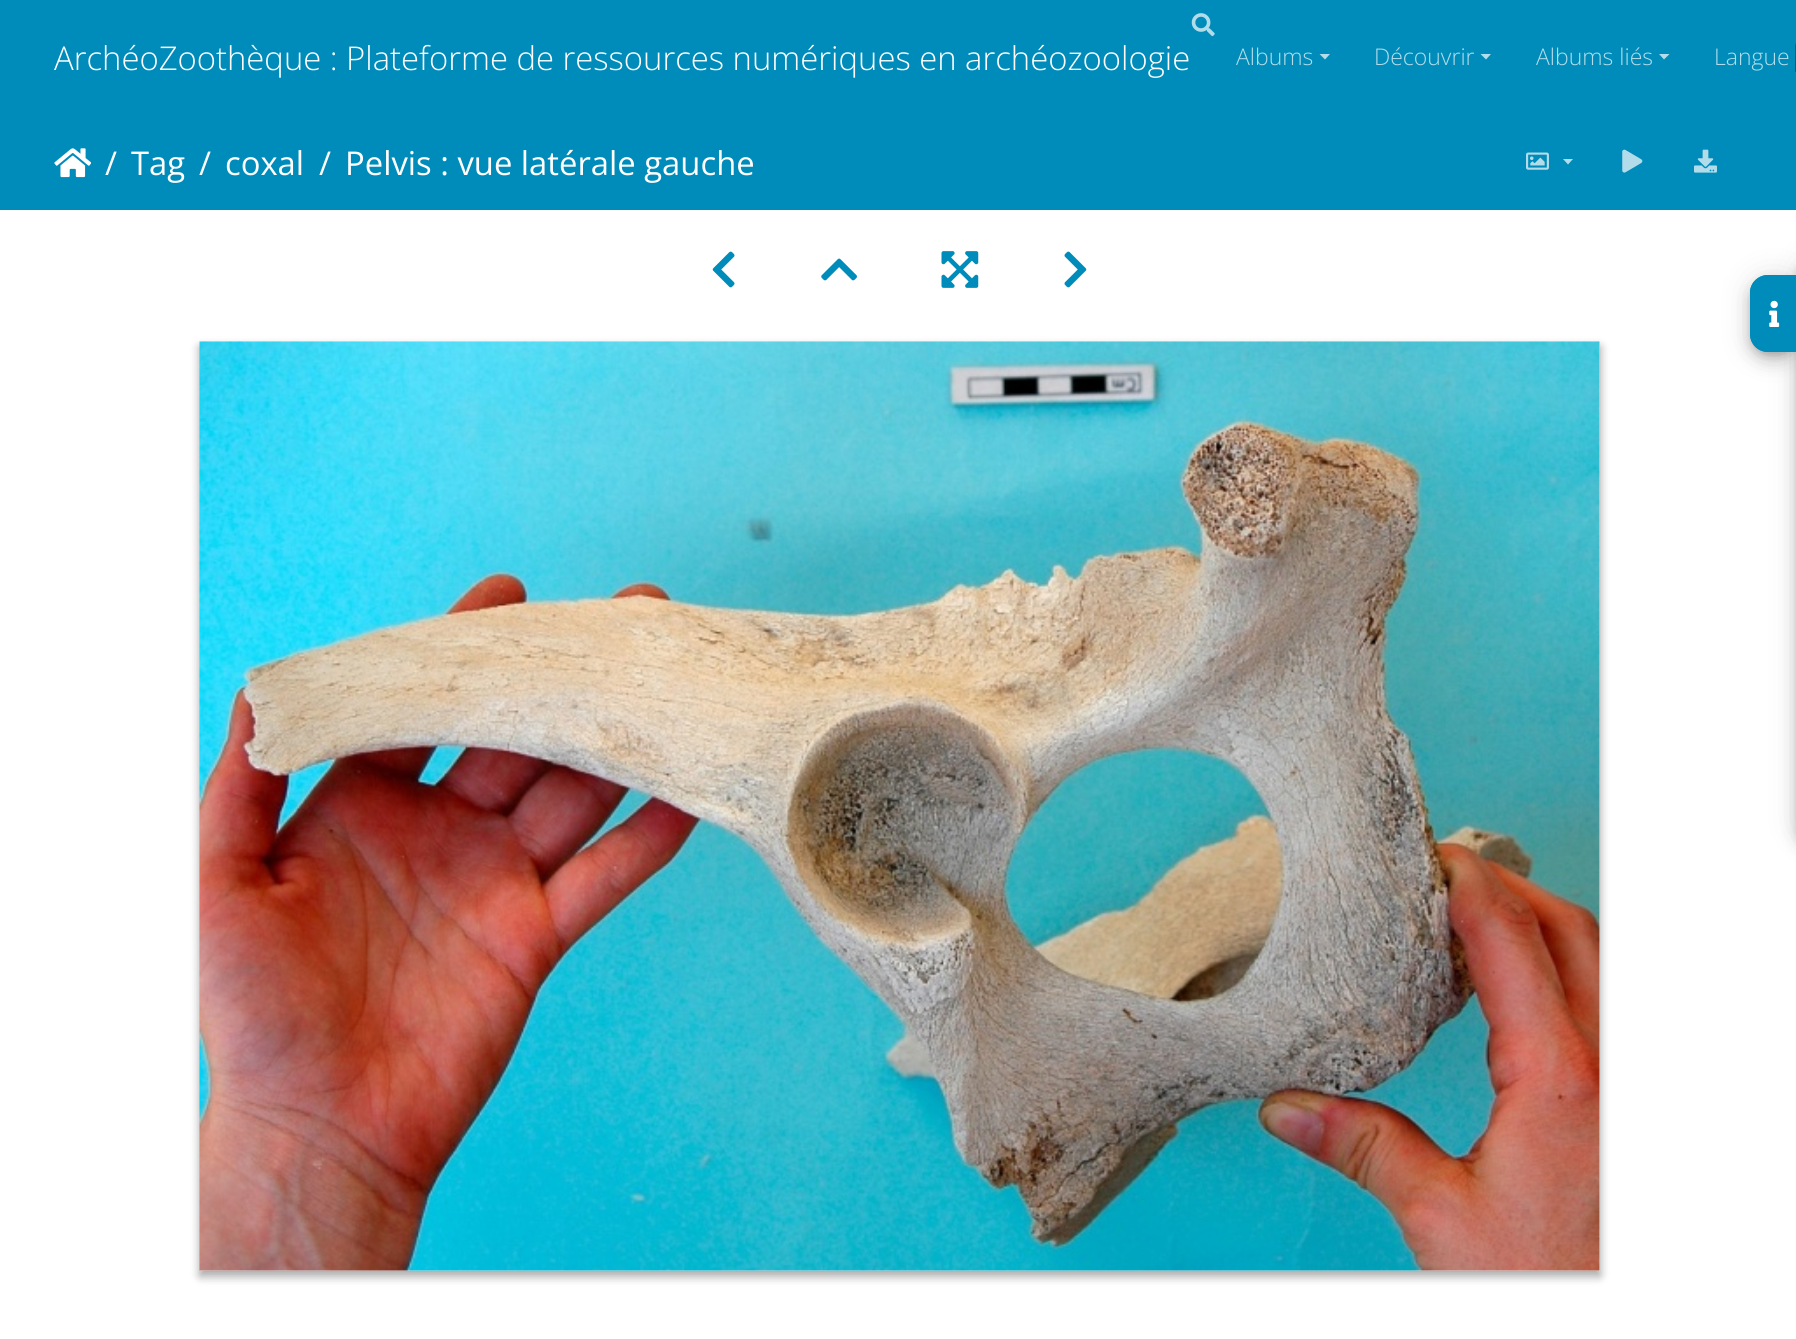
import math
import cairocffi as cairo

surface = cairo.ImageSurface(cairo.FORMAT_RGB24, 1796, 1339)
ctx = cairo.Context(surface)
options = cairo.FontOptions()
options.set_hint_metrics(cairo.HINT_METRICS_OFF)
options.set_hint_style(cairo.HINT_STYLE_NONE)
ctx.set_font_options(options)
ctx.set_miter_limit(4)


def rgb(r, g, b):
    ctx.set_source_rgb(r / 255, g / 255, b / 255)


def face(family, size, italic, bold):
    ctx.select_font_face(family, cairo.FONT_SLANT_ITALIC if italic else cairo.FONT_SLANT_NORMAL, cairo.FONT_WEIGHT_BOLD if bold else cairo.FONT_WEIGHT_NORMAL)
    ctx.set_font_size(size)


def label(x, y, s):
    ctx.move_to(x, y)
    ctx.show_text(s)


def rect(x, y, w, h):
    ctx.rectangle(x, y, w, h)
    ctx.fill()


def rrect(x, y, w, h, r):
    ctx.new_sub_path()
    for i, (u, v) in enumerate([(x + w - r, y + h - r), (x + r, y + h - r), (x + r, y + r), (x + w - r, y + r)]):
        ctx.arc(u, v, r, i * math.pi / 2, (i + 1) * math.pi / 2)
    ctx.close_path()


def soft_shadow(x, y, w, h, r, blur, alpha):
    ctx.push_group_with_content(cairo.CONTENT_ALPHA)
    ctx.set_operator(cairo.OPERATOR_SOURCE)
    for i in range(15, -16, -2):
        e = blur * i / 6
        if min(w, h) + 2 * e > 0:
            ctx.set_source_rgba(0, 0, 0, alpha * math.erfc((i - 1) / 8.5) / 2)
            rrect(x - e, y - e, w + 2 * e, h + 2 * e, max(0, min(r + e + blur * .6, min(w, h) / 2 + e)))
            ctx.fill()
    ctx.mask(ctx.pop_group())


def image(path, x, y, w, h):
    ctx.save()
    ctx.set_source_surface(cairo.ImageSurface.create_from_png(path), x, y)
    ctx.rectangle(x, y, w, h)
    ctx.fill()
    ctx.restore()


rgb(255, 255, 255)
ctx.paint()
rgb(0, 140, 186)
rect(0, 0, 1796, 210)
face('Open Sans Light', 32.8, 0, 0)
rgb(255, 255, 255)
label(54, 70, 'ArchéoZoothèque : Plateforme de ressources numériques en archéozoologie')
image('image0.png', 1191, 13, 24, 24)
face('Open Sans Light', 23, 0, 0)
rgb(179, 221, 234)
label(1236, 65, 'Albums')
ctx.new_path()
ctx.move_to(1319.5, 54)
ctx.line_to(1330, 54)
ctx.line_to(1325, 59.5)
ctx.close_path()
ctx.fill()
label(1374, 65, 'Découvrir')
ctx.new_path()
ctx.move_to(1480.5, 54)
ctx.line_to(1491, 54)
ctx.line_to(1486, 59.5)
ctx.close_path()
ctx.fill()
label(1536, 65, 'Albums liés')
ctx.new_path()
ctx.move_to(1659, 54)
ctx.line_to(1669.5, 54)
ctx.line_to(1664, 59.5)
ctx.close_path()
ctx.fill()
label(1714, 65, 'Langue')
image('image1.png', 1795, 43, 1, 29)
image('image2.png', 54, 148, 37, 30)
face('Open Sans', 32.8, 0, 0)
rgb(255, 255, 255)
label(105, 175, '/')
label(131, 175, 'Tag')
label(199, 175, '/')
label(225, 175, 'coxal')
label(319, 175, '/')
label(345, 175, 'Pelvis : vue latérale gauche')
image('image3.png', 1526, 152, 23, 18)
rgb(179, 221, 234)
ctx.new_path()
ctx.move_to(1563, 159)
ctx.line_to(1573, 159)
ctx.line_to(1568, 164.5)
ctx.close_path()
ctx.fill()
image('image4.png', 1622, 149, 21, 24)
image('image5.png', 1694, 149, 23, 24)
image('image6.png', 712, 251, 23, 37)
image('image7.png', 821, 258, 36, 23)
image('image8.png', 941, 251, 38, 37)
image('image9.png', 1064, 251, 23, 37)
rgb(0, 0, 0)
soft_shadow(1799, 264, 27, 580, 16, 4.5, 0.2)
soft_shadow(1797, 259, 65, 583, 18, 16, 0.12)
soft_shadow(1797, 268, 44, 583, 18, 9, 0.14)
soft_shadow(1752, 282, 44, 73, 16, 4.5, 0.2)
soft_shadow(1750, 277, 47, 77, 18, 16, 0.12)
soft_shadow(1750, 285, 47, 77, 18, 9, 0.14)
rgb(0, 140, 186)
ctx.new_path()
ctx.move_to(1768, 275)
ctx.line_to(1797, 275)
ctx.line_to(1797, 352)
ctx.line_to(1768, 352)
ctx.curve_to(1758, 352, 1750, 344, 1750, 334)
ctx.line_to(1750, 293)
ctx.curve_to(1750, 283, 1758, 275, 1768, 275)
ctx.close_path()
ctx.fill()
ctx.set_fill_rule(cairo.FILL_RULE_EVEN_ODD)
ctx.new_path()
ctx.move_to(1768, 275)
ctx.line_to(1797, 275)
ctx.line_to(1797, 352)
ctx.line_to(1768, 352)
ctx.curve_to(1758, 352, 1750, 344, 1750, 334)
ctx.line_to(1750, 292)
ctx.curve_to(1750, 283, 1758, 275, 1768, 275)
ctx.close_path()
ctx.move_to(1768, 276)
ctx.line_to(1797, 276)
ctx.line_to(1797, 350)
ctx.line_to(1768, 350)
ctx.curve_to(1759, 350, 1752, 343, 1752, 334)
ctx.line_to(1752, 292)
ctx.curve_to(1752, 284, 1759, 276, 1768, 276)
ctx.close_path()
ctx.fill()
image('image10.png', 1769, 300, 11, 27)
ctx.save()
ctx.new_path()
ctx.move_to(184, 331)
ctx.line_to(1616, 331)
ctx.line_to(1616, 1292)
ctx.line_to(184, 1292)
ctx.close_path()
ctx.move_to(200, 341)
ctx.line_to(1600, 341)
ctx.line_to(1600, 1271)
ctx.line_to(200, 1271)
ctx.close_path()
ctx.clip()
rgb(0, 0, 0)
soft_shadow(200, 347, 1400, 929, 0, 5, 0.23)
ctx.restore()
rgb(0, 0, 0)
soft_shadow(200, 347, 1400, 929, 0, 5, 0.16)
image('image11.png', 199, 341, 1401, 930)
surface.write_to_png('render.png')
